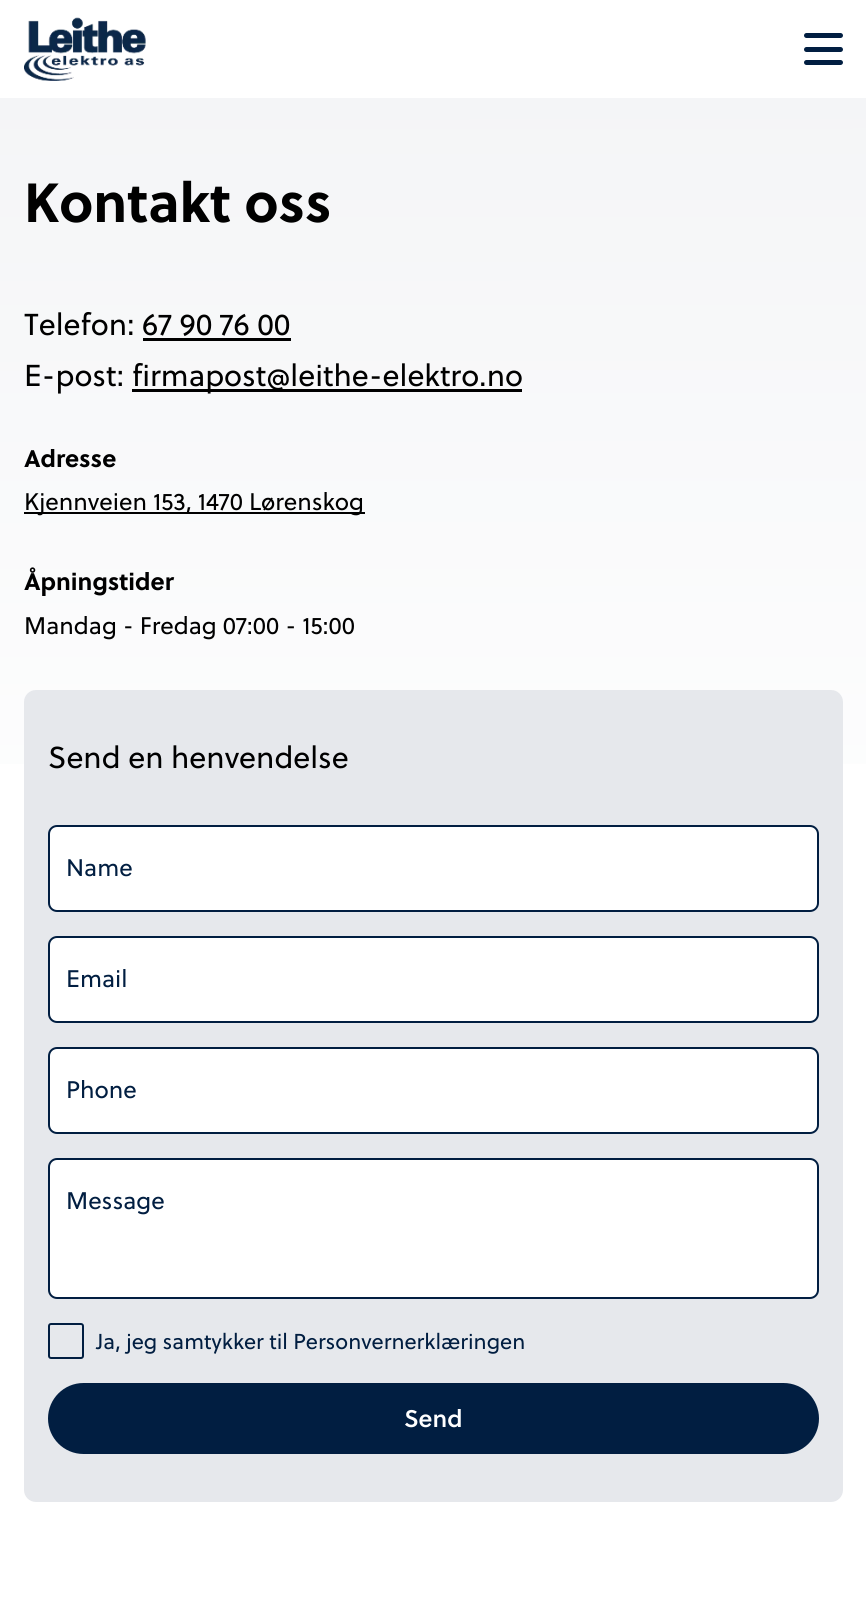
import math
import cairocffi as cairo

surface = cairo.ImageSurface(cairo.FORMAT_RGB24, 866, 1607)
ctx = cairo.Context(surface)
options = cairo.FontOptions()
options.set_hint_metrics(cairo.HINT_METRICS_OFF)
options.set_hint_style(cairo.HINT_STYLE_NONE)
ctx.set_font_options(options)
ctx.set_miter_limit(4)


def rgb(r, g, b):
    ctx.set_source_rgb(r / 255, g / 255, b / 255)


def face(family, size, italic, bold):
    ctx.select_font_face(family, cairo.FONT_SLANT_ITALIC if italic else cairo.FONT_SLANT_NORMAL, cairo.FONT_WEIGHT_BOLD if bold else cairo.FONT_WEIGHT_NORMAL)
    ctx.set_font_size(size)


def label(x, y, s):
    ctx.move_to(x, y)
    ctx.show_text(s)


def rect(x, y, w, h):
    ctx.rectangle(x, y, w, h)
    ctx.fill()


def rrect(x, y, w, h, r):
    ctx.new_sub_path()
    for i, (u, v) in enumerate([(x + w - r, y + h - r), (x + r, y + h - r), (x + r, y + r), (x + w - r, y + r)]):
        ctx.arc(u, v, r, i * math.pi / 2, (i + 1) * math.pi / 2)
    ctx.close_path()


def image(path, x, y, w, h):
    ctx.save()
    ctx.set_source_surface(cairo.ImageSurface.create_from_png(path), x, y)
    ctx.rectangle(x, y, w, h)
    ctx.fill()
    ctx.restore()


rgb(255, 255, 255)
ctx.paint()
image('image0.png', 24, 17, 122, 64)
rgb(1, 30, 65)
rrect(804, 33, 39, 5, 2.5)
ctx.fill()
rrect(804, 47, 39, 5, 2.5)
ctx.fill()
rrect(804, 60, 39, 5, 2.5)
ctx.fill()
gradient = cairo.LinearGradient(433, 0, 434, 965)
gradient.add_color_stop_rgba(0, 0.953, 0.957, 0.965, 1)
gradient.add_color_stop_rgba(1, 1, 1, 1, 1)
ctx.set_source(gradient)
rect(0, 98, 866, 666)
face('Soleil', 55, 0, 1)
rgb(0, 0, 0)
label(24, 222, 'Kontakt oss')
face('Soleil', 30.25, 0, 0)
label(24, 335, 'Telefon: 67 90 76 00')
rect(143, 338, 148, 3)
label(24, 386, 'E-post:')
rect(132, 389, 390, 3)
label(132, 386, 'firmapost@leithe-elektro.no')
face('Soleil', 24, 0, 1)
label(24, 467, 'Adresse')
rect(24, 512, 341, 2)
face('Soleil', 24, 0, 0)
label(24, 510, 'Kjennveien 153, 1470 Lørenskog')
face('Soleil', 24, 0, 1)
label(24, 590, 'Åpningstider')
face('Soleil', 24, 0, 0)
label(24, 634, 'Mandag - Fredag 07:00 - 15:00')
rgb(230, 232, 236)
rrect(24, 690, 819, 812, 12)
ctx.fill()
face('Soleil', 30.25, 0, 0)
rgb(0, 0, 0)
label(48, 768, 'Send en henvendelse')
rgb(255, 255, 255)
rrect(49, 826, 769, 85, 8)
ctx.fill_preserve()
rgb(1, 30, 65)
ctx.stroke()
face('Soleil', 24, 0, 0)
label(66, 876, 'Name')
rgb(255, 255, 255)
rrect(49, 937, 769, 85, 8)
ctx.fill_preserve()
rgb(1, 30, 65)
ctx.stroke()
label(66, 987, 'Email')
rgb(255, 255, 255)
rrect(49, 1048, 769, 85, 8)
ctx.fill_preserve()
rgb(1, 30, 65)
ctx.stroke()
label(66, 1098, 'Phone')
rgb(255, 255, 255)
rrect(49, 1159, 769, 139, 8)
ctx.fill_preserve()
rgb(1, 30, 65)
ctx.stroke()
label(66, 1209, 'Message')
rrect(49, 1324, 34, 34, 2)
ctx.stroke()
face('Soleil', 21.6, 0, 0)
label(96, 1349, 'Ja, jeg samtykker til Personvernerklæringen')
rrect(48, 1383, 771, 71, 35.5)
ctx.fill()
face('Soleil SemiBold', 24, 0, 0)
rgb(255, 255, 255)
label(404, 1427, 'Send')
surface.write_to_png('render.png')
